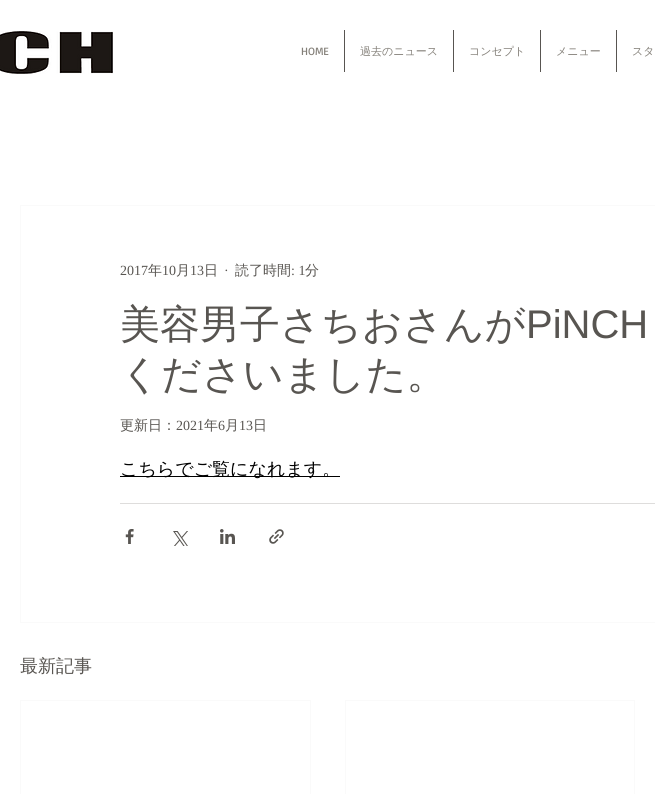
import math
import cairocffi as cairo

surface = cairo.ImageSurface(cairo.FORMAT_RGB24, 655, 794)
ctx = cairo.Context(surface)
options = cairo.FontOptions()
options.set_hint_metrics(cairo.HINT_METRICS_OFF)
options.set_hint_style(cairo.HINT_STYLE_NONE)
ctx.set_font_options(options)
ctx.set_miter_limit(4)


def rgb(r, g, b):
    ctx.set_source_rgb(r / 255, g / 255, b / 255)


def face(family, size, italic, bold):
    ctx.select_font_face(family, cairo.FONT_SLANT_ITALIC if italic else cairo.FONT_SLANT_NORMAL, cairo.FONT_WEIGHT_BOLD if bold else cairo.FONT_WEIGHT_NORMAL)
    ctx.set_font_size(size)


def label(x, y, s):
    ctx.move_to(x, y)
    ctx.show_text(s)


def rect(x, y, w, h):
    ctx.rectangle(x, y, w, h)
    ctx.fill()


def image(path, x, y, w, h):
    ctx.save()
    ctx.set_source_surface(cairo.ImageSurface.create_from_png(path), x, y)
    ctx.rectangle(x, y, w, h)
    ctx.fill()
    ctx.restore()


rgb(255, 255, 255)
ctx.paint()
image('image0.png', 0, 31, 113, 43)
face('Basic', 11, 0, 0)
rgb(132, 128, 121)
label(301, 55, 'HOME')
rgb(88, 85, 81)
rect(344, 30, 1, 42)
face('WenQuanYi Zen Hei Medium', 11, 0, 0)
rgb(132, 128, 121)
label(360, 55, '過去のニュース')
rgb(88, 85, 81)
rect(453, 30, 1, 42)
rgb(132, 128, 121)
label(469, 55, 'コンセプト')
rgb(88, 85, 81)
rect(540, 30, 1, 42)
rgb(132, 128, 121)
label(556, 55, 'メニュー')
rgb(88, 85, 81)
rect(616, 30, 1, 42)
rgb(132, 128, 121)
label(632, 55, 'スタ')
ctx.rectangle(20.5, 205.5, 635, 417)
rgb(250, 250, 250)
ctx.set_line_width(1)
ctx.stroke()
face('Liberation Serif', 14, 0, 0)
rgb(88, 85, 81)
label(120, 275, '2017')
face('WenQuanYi Zen Hei Medium', 14, 0, 0)
label(148, 275, '年')
face('Liberation Serif', 14, 0, 0)
label(162, 275, '10')
face('WenQuanYi Zen Hei Medium', 14, 0, 0)
label(176, 275, '月')
face('Liberation Serif', 14, 0, 0)
label(190, 275, '13')
face('WenQuanYi Zen Hei Medium', 14, 0, 0)
label(204, 275, '日')
face('Liberation Serif', 14, 0, 0)
label(224, 275, '·')
face('WenQuanYi Zen Hei Medium', 14, 0, 0)
label(235, 275, '読了時間')
face('Liberation Serif', 14, 0, 0)
label(291, 275, ': 1')
face('WenQuanYi Zen Hei Medium', 14, 0, 0)
label(305, 275, '分')
face('WenQuanYi Zen Hei Medium', 40, 0, 0)
label(120, 338, '美容男子さちおさんが')
face('Liberation Sans', 40, 0, 0)
label(526, 338, 'PiNCH')
face('WenQuanYi Zen Hei Medium', 40, 0, 0)
label(120, 388, 'くださいました。')
face('WenQuanYi Zen Hei Medium', 14, 0, 0)
label(120, 430, '更新日：')
face('Liberation Serif', 14, 0, 0)
label(176, 430, '2021')
face('WenQuanYi Zen Hei Medium', 14, 0, 0)
label(204, 430, '年')
face('Liberation Serif', 14, 0, 0)
label(218, 430, '6')
face('WenQuanYi Zen Hei Medium', 14, 0, 0)
label(225, 430, '月')
face('Liberation Serif', 14, 0, 0)
label(239, 430, '13')
face('WenQuanYi Zen Hei Medium', 14, 0, 0)
label(253, 430, '日')
rgb(0, 0, 0)
rect(120, 476, 220, 1)
face('WenQuanYi Zen Hei Medium', 18, 0, 0)
label(120, 475, 'こちらでご覧になれます。')
rgb(222, 221, 220)
rect(120, 503, 535, 1)
image('image1.png', 125, 529, 9, 15)
image('image2.png', 173, 531, 15, 15)
image('image3.png', 220, 529, 15, 15)
image('image4.png', 269, 529, 15, 15)
rgb(88, 85, 81)
label(20, 672, '最新記事')
ctx.rectangle(20.5, 700.5, 290, 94)
rgb(250, 250, 250)
ctx.stroke()
ctx.rectangle(345.5, 700.5, 289, 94)
ctx.stroke()
surface.write_to_png('render.png')
